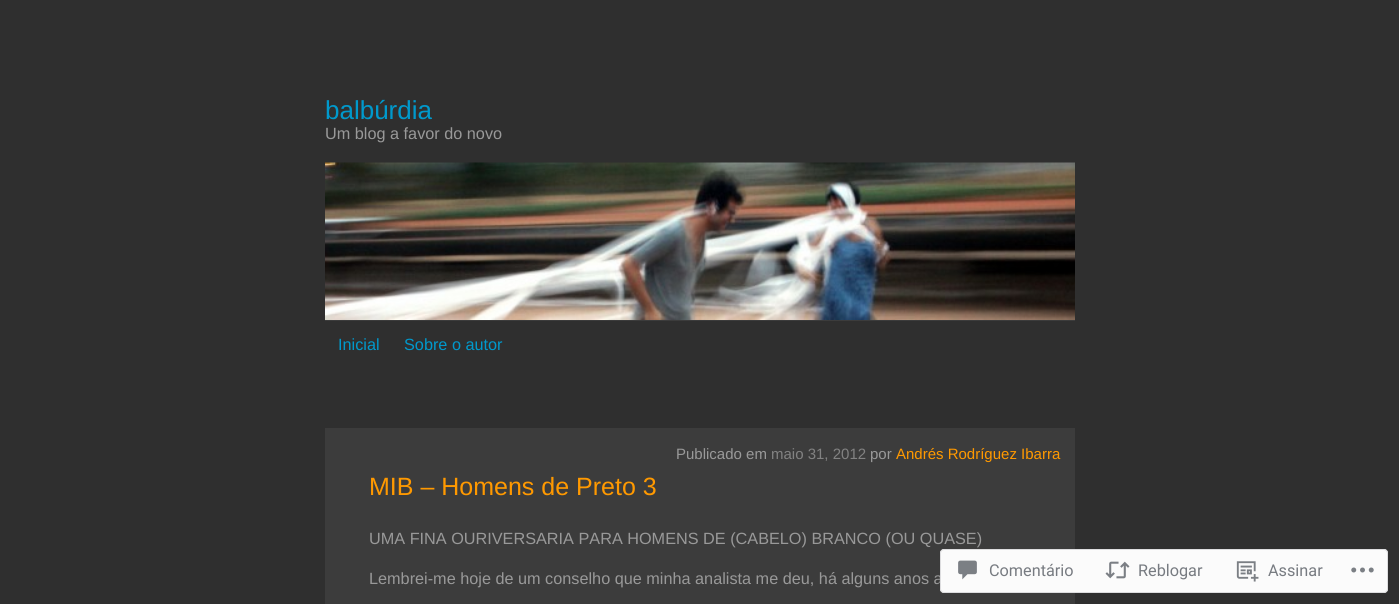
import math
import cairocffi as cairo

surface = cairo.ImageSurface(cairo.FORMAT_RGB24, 1399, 604)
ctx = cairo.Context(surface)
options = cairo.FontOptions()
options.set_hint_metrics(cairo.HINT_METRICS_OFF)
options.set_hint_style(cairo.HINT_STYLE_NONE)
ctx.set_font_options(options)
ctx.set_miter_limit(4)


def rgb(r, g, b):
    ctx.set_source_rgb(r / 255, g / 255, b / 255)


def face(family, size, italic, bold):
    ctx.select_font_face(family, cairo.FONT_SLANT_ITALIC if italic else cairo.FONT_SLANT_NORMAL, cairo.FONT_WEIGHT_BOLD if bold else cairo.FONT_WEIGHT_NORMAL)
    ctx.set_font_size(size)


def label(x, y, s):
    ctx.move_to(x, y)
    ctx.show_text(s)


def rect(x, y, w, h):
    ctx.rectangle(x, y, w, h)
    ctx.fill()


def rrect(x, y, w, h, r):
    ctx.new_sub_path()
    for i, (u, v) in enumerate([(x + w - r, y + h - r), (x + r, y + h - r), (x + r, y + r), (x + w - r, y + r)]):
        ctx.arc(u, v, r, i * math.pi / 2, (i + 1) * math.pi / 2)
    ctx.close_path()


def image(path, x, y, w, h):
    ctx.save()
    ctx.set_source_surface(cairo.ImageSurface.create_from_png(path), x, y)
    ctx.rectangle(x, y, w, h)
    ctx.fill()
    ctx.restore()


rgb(47, 47, 47)
ctx.paint()
face('Liberation Sans', 26, 0, 0)
rgb(0, 153, 204)
label(325, 119, 'balbúrdia')
face('Liberation Sans', 16.25, 0, 0)
rgb(153, 153, 153)
label(325, 139, 'Um blog a favor do novo')
image('image0.png', 325, 162, 750, 158)
rgb(60, 60, 60)
rect(325, 320, 750, 1)
rgb(0, 153, 204)
label(338, 350, 'Inicial')
label(404, 350, 'Sobre o autor')
rgb(60, 60, 60)
rect(325, 428, 750, 176)
face('Liberation Sans', 15, 0, 0)
rgb(153, 153, 153)
label(676, 459, 'Publicado em')
rgb(130, 130, 130)
label(771, 459, 'maio 31, 2012')
rgb(153, 153, 153)
label(870, 459, 'por')
rgb(255, 153, 0)
label(896, 459, 'Andrés Rodríguez Ibarra')
face('Liberation Sans', 25, 0, 0)
label(369, 495, 'MIB – Homens de Preto 3')
face('Liberation Sans', 16.25, 0, 0)
rgb(153, 153, 153)
label(369, 544, 'UMA FINA OURIVERSARIA PARA HOMENS DE (CABELO) BRANCO (OU QUASE)')
label(369, 584, 'Lembrei-me hoje de um conselho que minha analista me deu, há alguns anos a')
ctx.set_source_rgba(1, 1, 1, 0.98)
rrect(940, 549, 448, 44, 4)
ctx.fill()
rrect(940.5, 549.5, 447, 43, 3.5)
ctx.set_source_rgba(0.863, 0.863, 0.871, 0.98)
ctx.set_line_width(1)
ctx.stroke()
image('image1.png', 958, 560, 19, 20)
face('Roboto', 16.25, 0, 0)
rgb(119, 123, 129)
label(989, 576, 'Comentário')
image('image2.png', 1105, 561, 25, 18)
label(1138, 576, 'Reblogar')
image('image3.png', 1236, 561, 23, 21)
label(1268, 576, 'Assinar')
image('image4.png', 1351, 567, 23, 6)
surface.write_to_png('render.png')
